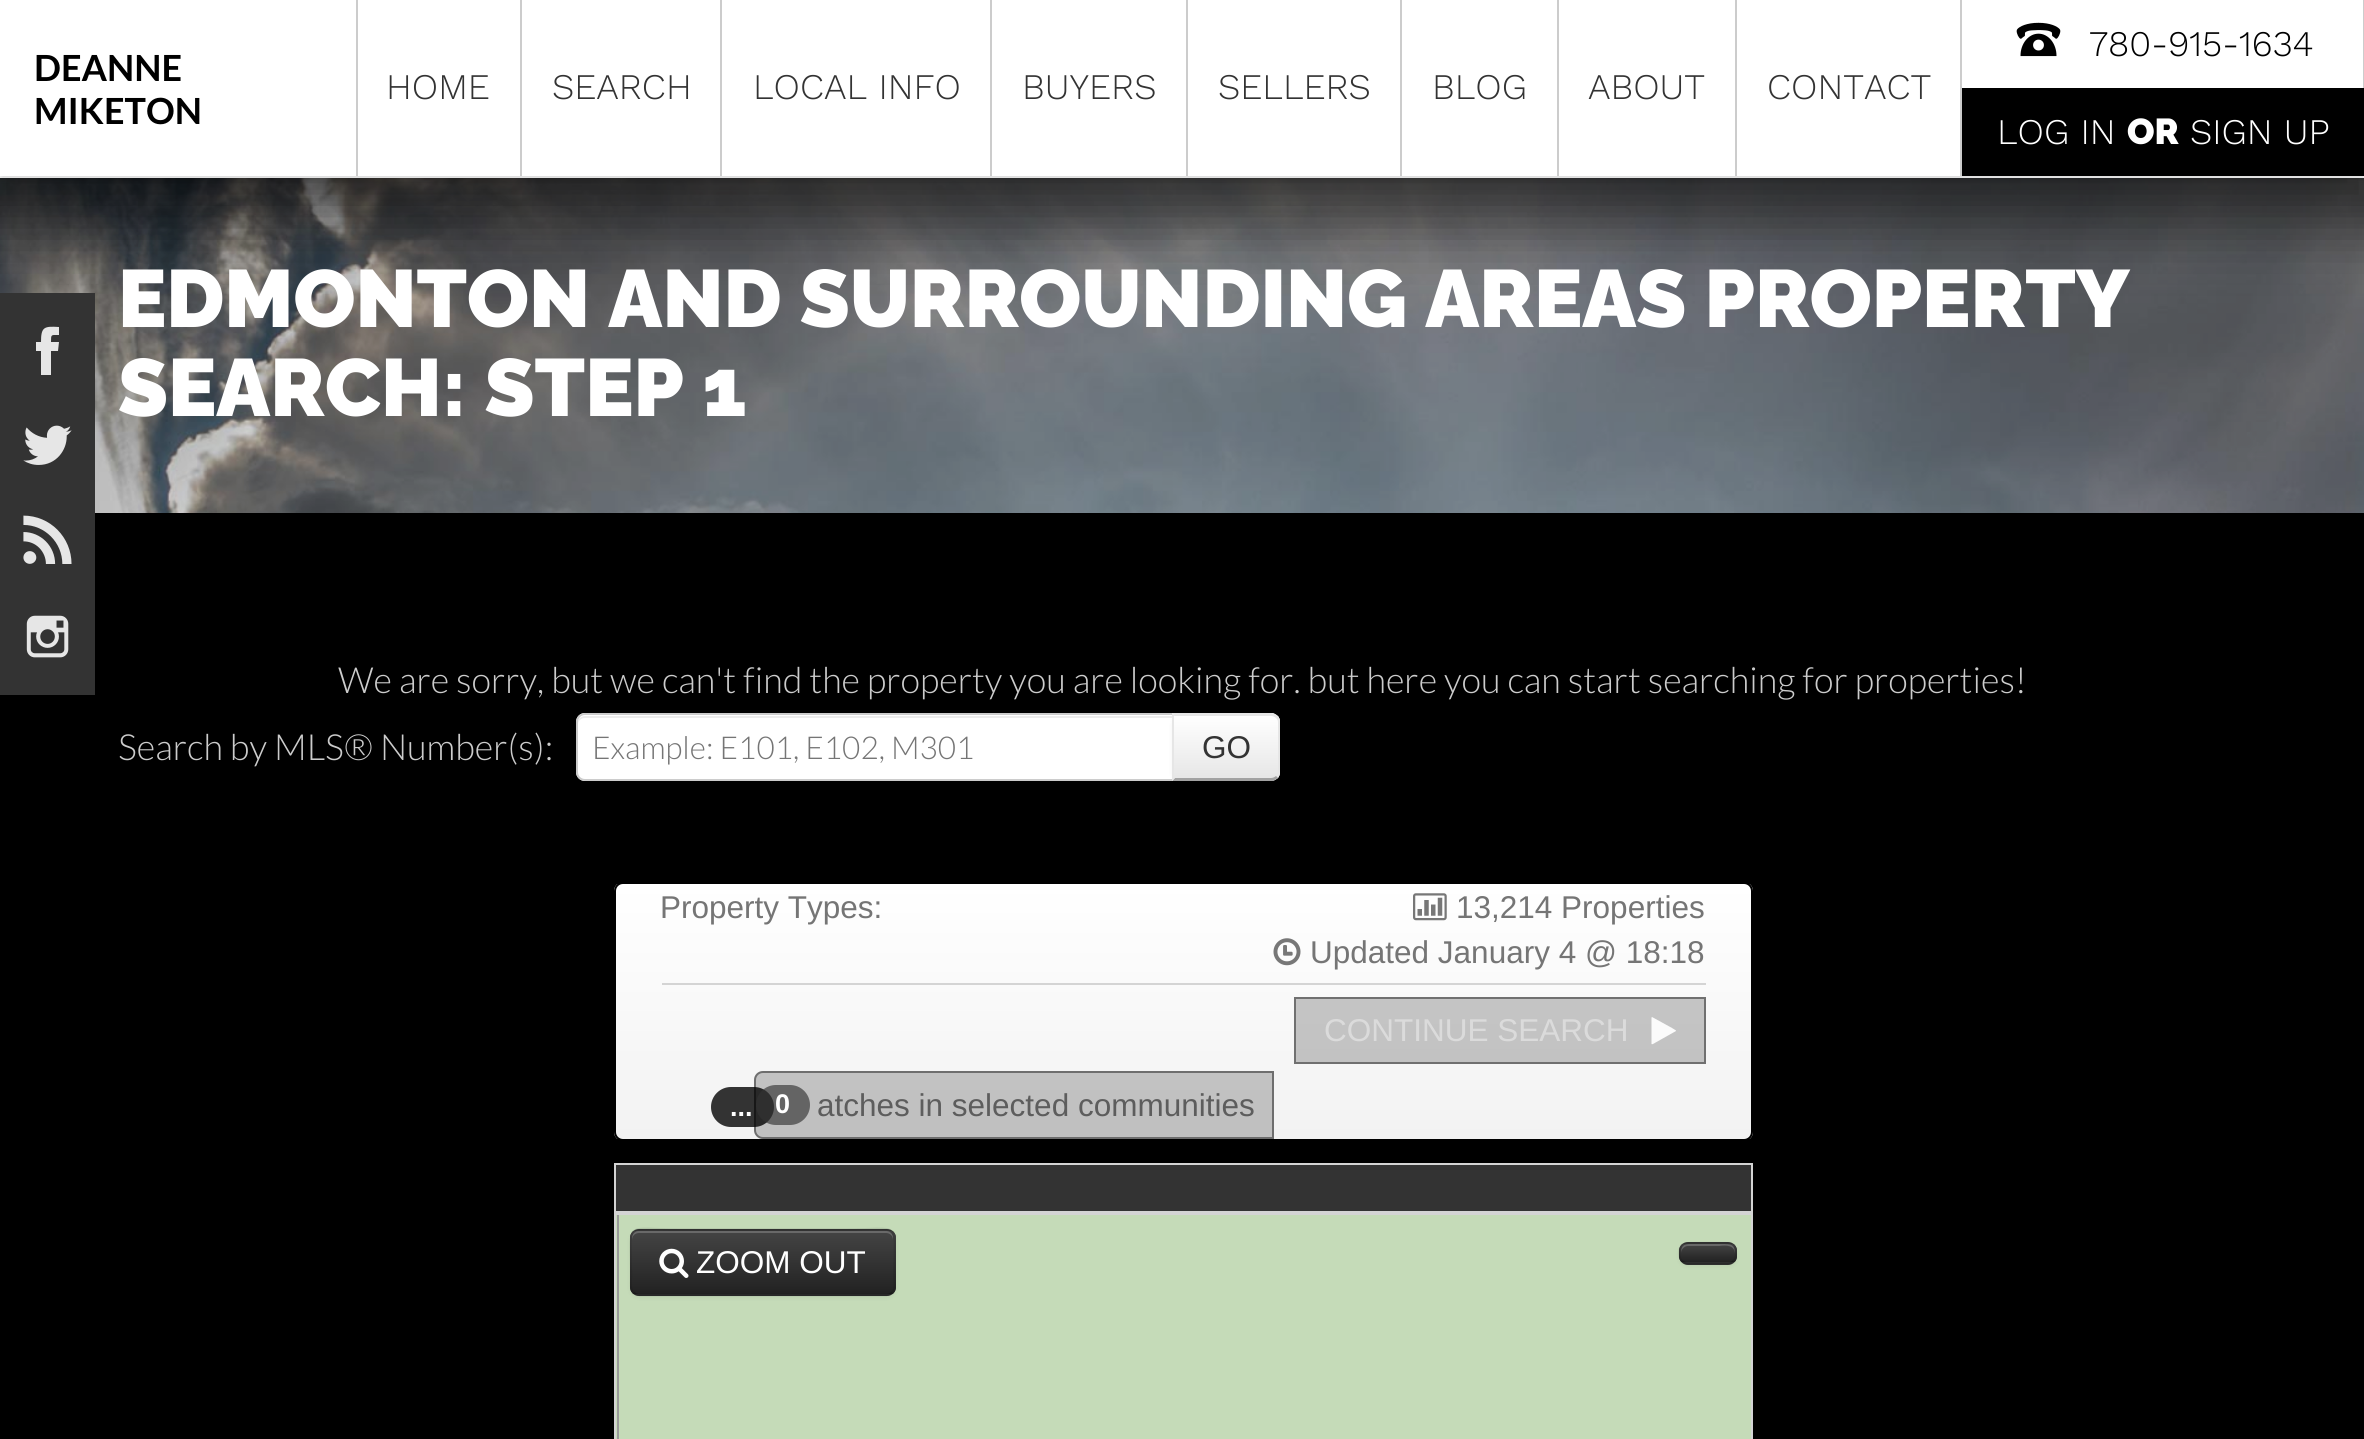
import math
import cairocffi as cairo

surface = cairo.ImageSurface(cairo.FORMAT_RGB24, 2364, 1439)
ctx = cairo.Context(surface)
options = cairo.FontOptions()
options.set_hint_metrics(cairo.HINT_METRICS_OFF)
options.set_hint_style(cairo.HINT_STYLE_NONE)
ctx.set_font_options(options)
ctx.set_miter_limit(4)


def rgb(r, g, b):
    ctx.set_source_rgb(r / 255, g / 255, b / 255)


def face(family, size, italic, bold):
    ctx.select_font_face(family, cairo.FONT_SLANT_ITALIC if italic else cairo.FONT_SLANT_NORMAL, cairo.FONT_WEIGHT_BOLD if bold else cairo.FONT_WEIGHT_NORMAL)
    ctx.set_font_size(size)


def label(x, y, s):
    ctx.move_to(x, y)
    ctx.show_text(s)


def rect(x, y, w, h):
    ctx.rectangle(x, y, w, h)
    ctx.fill()


def rrect(x, y, w, h, r):
    ctx.new_sub_path()
    for i, (u, v) in enumerate([(x + w - r, y + h - r), (x + r, y + h - r), (x + r, y + r), (x + w - r, y + r)]):
        ctx.arc(u, v, r, i * math.pi / 2, (i + 1) * math.pi / 2)
    ctx.close_path()


def soft_shadow(x, y, w, h, r, blur, alpha):
    ctx.push_group_with_content(cairo.CONTENT_ALPHA)
    ctx.set_operator(cairo.OPERATOR_SOURCE)
    for i in range(15, -16, -2):
        e = blur * i / 6
        if min(w, h) + 2 * e > 0:
            ctx.set_source_rgba(0, 0, 0, alpha * math.erfc((i - 1) / 8.5) / 2)
            rrect(x - e, y - e, w + 2 * e, h + 2 * e, max(0, min(r + e + blur * .6, min(w, h) / 2 + e)))
            ctx.fill()
    ctx.mask(ctx.pop_group())


def image(path, x, y, w, h):
    ctx.save()
    ctx.set_source_surface(cairo.ImageSurface.create_from_png(path), x, y)
    ctx.rectangle(x, y, w, h)
    ctx.fill()
    ctx.restore()


rgb(0, 0, 0)
ctx.paint()
image('image4.png', 0, 178, 2364, 335)
rgb(51, 51, 51)
rect(0, 293, 95, 402)
rgb(0, 0, 0)
soft_shadow(-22, -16, 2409, 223, 0, 34, 0.25)
soft_shadow(-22, 0, 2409, 223, 0, 34, 0.5)
rgb(255, 255, 255)
rect(0, 0, 2364, 178)
ctx.save()
ctx.set_fill_rule(cairo.FILL_RULE_EVEN_ODD)
ctx.new_path()
ctx.move_to(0, 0)
ctx.line_to(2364, 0)
ctx.line_to(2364, 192)
ctx.line_to(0, 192)
ctx.close_path()
ctx.move_to(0, 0)
ctx.line_to(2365, 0)
ctx.line_to(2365, 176)
ctx.line_to(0, 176)
ctx.close_path()
ctx.clip()
rgb(0, 0, 0)
soft_shadow(0, 5, 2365, 175, 0, 3.5, 0.15)
ctx.restore()
face('Lato', 36, 0, 1)
rgb(0, 0, 0)
label(34, 81, 'DEANNE')
label(34, 124, 'MIKETON')
rgb(204, 204, 204)
rect(356, 0, 2, 176)
rect(520, 0, 2, 176)
face('Work Sans Light', 36, 0, 0)
rgb(51, 51, 51)
label(386, 99, 'HOME')
rgb(204, 204, 204)
rect(720, 0, 2, 176)
rgb(51, 51, 51)
label(552, 99, 'SEARCH')
rgb(204, 204, 204)
rect(990, 0, 2, 176)
rgb(51, 51, 51)
label(753, 99, 'LOCAL INFO')
rgb(204, 204, 204)
rect(1186, 0, 2, 176)
rgb(51, 51, 51)
label(1022, 99, 'BUYERS')
rgb(204, 204, 204)
rect(1400, 0, 2, 176)
rgb(51, 51, 51)
label(1218, 99, 'SELLERS')
rgb(204, 204, 204)
rect(1557, 0, 2, 176)
rgb(51, 51, 51)
label(1432, 99, 'BLOG')
rgb(204, 204, 204)
rect(1735, 0, 2, 176)
rgb(51, 51, 51)
label(1588, 99, 'ABOUT')
rgb(204, 204, 204)
rect(1960, 0, 2, 176)
rgb(51, 51, 51)
label(1767, 99, 'CONTACT')
rgb(204, 204, 204)
rect(2363, 0, 1, 88)
image('image0.png', 2016, 22, 45, 35)
rgb(0, 0, 0)
label(2089, 56, '780-915-1634')
rect(1962, 88, 402, 88)
rgb(255, 255, 255)
label(1997, 144, 'LOG IN')
face('Raleway Black', 36, 0, 0)
label(2127, 144, 'OR')
face('Work Sans Light', 36, 0, 0)
label(2190, 144, 'SIGN UP')
rgb(230, 230, 230)
ctx.new_path()
ctx.move_to(59, 342)
ctx.line_to(51, 342)
ctx.curve_to(51, 334, 51, 335, 59, 335)
ctx.line_to(59, 327)
ctx.curve_to(44, 326, 41, 327, 41, 342)
ctx.line_to(36, 342)
ctx.line_to(36, 351)
ctx.line_to(41, 351)
ctx.line_to(41, 375)
ctx.line_to(51, 375)
ctx.line_to(51, 351)
ctx.line_to(58, 351)
ctx.close_path()
ctx.fill()
image('image1.png', 23, 425, 49, 40)
image('image2.png', 23, 515, 49, 49)
image('image3.png', 26, 615, 43, 43)
face('Raleway Black', 81, 0, 0)
rgb(255, 255, 255)
label(118, 327, 'EDMONTON AND SURROUNDING AREAS PROPERTY')
label(118, 416, 'SEARCH: STEP 1')
face('Lato Light', 36, 0, 0)
rgb(204, 204, 204)
label(338, 693, 'We are sorry, but we can\'t find the property you are looking for. but here you can start searching for properties!')
label(118, 760, 'Search by MLS® Number(s):')
rgb(255, 255, 255)
ctx.new_path()
ctx.move_to(585, 713)
ctx.line_to(1184, 713)
ctx.line_to(1184, 781)
ctx.line_to(585, 781)
ctx.curve_to(580, 781, 576, 777, 576, 772)
ctx.line_to(576, 722)
ctx.curve_to(576, 717, 580, 713, 585, 713)
ctx.close_path()
ctx.fill()
rgb(236, 236, 236)
ctx.new_path()
ctx.move_to(585, 718)
ctx.line_to(1181, 718)
ctx.line_to(1181, 716)
ctx.line_to(585, 716)
ctx.curve_to(581, 716, 578, 719, 578, 723)
ctx.line_to(578, 724)
ctx.curve_to(578, 721, 581, 718, 585, 718)
ctx.close_path()
ctx.fill()
ctx.new_path()
ctx.move_to(585, 714)
ctx.line_to(1183, 714)
ctx.line_to(1183, 780)
ctx.line_to(585, 780)
ctx.curve_to(580.5, 780, 577, 776.5, 577, 772)
ctx.line_to(577, 722)
ctx.curve_to(577, 717.5, 580.5, 714, 585, 714)
ctx.close_path()
rgb(204, 204, 204)
ctx.stroke()
face('Lato Light', 31.5, 0, 0)
rgb(117, 117, 117)
label(592, 759, 'Example: E101, E102, M301')
rgb(0, 0, 0)
soft_shadow(1172, 716, 108, 67, 9, 2, 0.05)
rgb(245, 245, 245)
ctx.new_path()
ctx.move_to(1172, 713)
ctx.line_to(1271, 713)
ctx.curve_to(1276, 713, 1280, 717, 1280, 722)
ctx.line_to(1280, 772)
ctx.curve_to(1280, 777, 1276, 781, 1271, 781)
ctx.line_to(1172, 781)
ctx.close_path()
ctx.fill()
ctx.save()
ctx.new_path()
ctx.move_to(1172, 713)
ctx.line_to(1271, 713)
ctx.curve_to(1276, 713, 1280, 717, 1280, 722)
ctx.line_to(1280, 772)
ctx.curve_to(1280, 777, 1276, 781, 1271, 781)
ctx.line_to(1172, 781)
ctx.close_path()
ctx.clip()
gradient = cairo.LinearGradient(1226, 716, 1226, 779)
gradient.add_color_stop_rgba(0, 1, 1, 1, 1)
gradient.add_color_stop_rgba(1, 0.902, 0.902, 0.902, 1)
ctx.set_source(gradient)
rect(1174, 716, 106, 63)
ctx.restore()
rgb(230, 230, 230)
ctx.new_path()
ctx.move_to(1172, 713)
ctx.line_to(1273, 713)
ctx.curve_to(1275, 714, 1276, 715, 1278, 716)
ctx.line_to(1276, 718)
ctx.curve_to(1275, 717, 1273, 716, 1271, 716)
ctx.line_to(1175, 716)
ctx.close_path()
ctx.fill()
ctx.new_path()
ctx.move_to(1278, 716)
ctx.curve_to(1279, 717, 1280, 720, 1280, 722)
ctx.line_to(1280, 772)
ctx.curve_to(1280, 774, 1279, 777, 1278, 778)
ctx.line_to(1276, 776)
ctx.curve_to(1277, 775, 1278, 774, 1278, 772)
ctx.line_to(1278, 722)
ctx.curve_to(1278, 720, 1277, 719, 1276, 718)
ctx.close_path()
ctx.fill()
rgb(162, 162, 162)
ctx.new_path()
ctx.move_to(1278, 778)
ctx.curve_to(1276, 779, 1275, 780, 1273, 781)
ctx.line_to(1172, 781)
ctx.line_to(1175, 778)
ctx.line_to(1271, 778)
ctx.curve_to(1273, 778, 1275, 777, 1276, 776)
ctx.close_path()
ctx.fill()
rgb(230, 230, 230)
ctx.new_path()
ctx.move_to(1174, 716)
ctx.line_to(1175, 716)
ctx.line_to(1172, 713)
ctx.line_to(1172, 781)
ctx.line_to(1175, 778)
ctx.line_to(1174, 778)
ctx.close_path()
ctx.fill()
face('Liberation Sans', 31.5, 0, 0)
rgb(51, 51, 51)
label(1202, 758, 'GO')
ctx.save()
rrect(614, 882, 1139, 259, 9)
ctx.clip()
gradient = cairo.LinearGradient(1184, 884, 1184, 1139)
gradient.add_color_stop_rgba(0, 1, 1, 1, 1)
gradient.add_color_stop_rgba(1, 0.949, 0.949, 0.949, 1)
ctx.set_source(gradient)
rect(614, 884, 1139, 255)
ctx.restore()
gradient = cairo.LinearGradient(1184, 884, 1184, 1139)
gradient.add_color_stop_rgba(0, 0.788, 0.788, 0.788, 1)
gradient.add_color_stop_rgba(1, 0.749, 0.749, 0.749, 1)
ctx.set_source(gradient)
rect(1296, 999, 408, 63)
rrect(615, 883, 1137, 257, 8)
rgb(0, 0, 0)
ctx.stroke()
rgb(117, 117, 117)
label(660, 918, 'Property Types:')
image('image5.png', 1413, 893, 34, 28)
label(1456, 918, '13,214 Properties')
image('image6.png', 1273, 938, 28, 28)
label(1310, 963, 'Updated January 4 @ 18:18')
rgb(212, 212, 212)
rect(662, 983, 1044, 2)
ctx.rectangle(1295, 998, 410, 65)
rgb(112, 112, 112)
ctx.stroke()
rgb(219, 219, 219)
label(1324, 1041, 'CONTINUE SEARCH')
rgb(251, 251, 251)
ctx.new_path()
ctx.move_to(1676, 1031)
ctx.line_to(1656.5, 1042)
ctx.curve_to(1656, 1042, 1652.5, 1045, 1651.5, 1044)
ctx.line_to(1651.5, 1017.5)
ctx.line_to(1652, 1017)
ctx.line_to(1672, 1028)
ctx.line_to(1676, 1030.5)
ctx.close_path()
ctx.fill()
rgb(51, 51, 51)
rrect(711, 1087, 63, 40, 20)
ctx.fill()
face('Liberation Sans', 27, 0, 1)
rgb(255, 255, 255)
label(730, 1116, '...')
face('Liberation Sans', 31.5, 0, 0)
rgb(117, 117, 117)
label(817, 1116, 'atches in selected communities')
ctx.set_source_rgba(0, 0, 0, 0.21)
ctx.new_path()
ctx.move_to(763, 1071)
ctx.line_to(1274, 1071)
ctx.line_to(1274, 1139)
ctx.line_to(763, 1139)
ctx.curve_to(758, 1139, 754, 1135, 754, 1130)
ctx.line_to(754, 1080)
ctx.curve_to(754, 1075, 758, 1071, 763, 1071)
ctx.close_path()
ctx.fill()
ctx.new_path()
ctx.move_to(763, 1072)
ctx.line_to(1273, 1072)
ctx.line_to(1273, 1138)
ctx.line_to(763, 1138)
ctx.curve_to(758.5, 1138, 755, 1134.5, 755, 1130)
ctx.line_to(755, 1080)
ctx.curve_to(755, 1075.5, 758.5, 1072, 763, 1072)
ctx.close_path()
ctx.set_source_rgba(0, 0, 0, 0.43)
ctx.stroke()
ctx.set_source_rgba(0.2, 0.2, 0.2, 0.65)
rrect(756, 1085, 54, 40, 20)
ctx.fill()
face('Liberation Sans', 27, 0, 1)
rgb(255, 255, 255)
label(775, 1113, '0')
rgb(51, 51, 51)
ctx.rectangle(615, 1164, 1137, 48)
ctx.fill_preserve()
rgb(212, 212, 212)
ctx.stroke()
rgb(197, 219, 184)
ctx.rectangle(615, 1214, 1137, 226)
ctx.fill_preserve()
rgb(212, 212, 212)
ctx.stroke()
rgb(153, 153, 153)
rect(617, 1215, 2, 224)
rgb(0, 0, 0)
soft_shadow(630, 1231, 266, 67, 9, 2, 0.05)
rgb(54, 54, 54)
rrect(630, 1229, 266, 67, 9)
ctx.fill()
ctx.save()
rrect(630, 1229, 266, 67, 9)
ctx.clip()
gradient = cairo.LinearGradient(763, 1231, 763, 1294)
gradient.add_color_stop_rgba(0, 0.267, 0.267, 0.267, 1)
gradient.add_color_stop_rgba(1, 0.133, 0.133, 0.133, 1)
ctx.set_source(gradient)
rect(630, 1231, 266, 63)
ctx.restore()
ctx.set_source_rgba(1, 1, 1, 0.2)
ctx.new_path()
ctx.move_to(639, 1233)
ctx.line_to(886, 1233)
ctx.curve_to(890, 1233, 893, 1236, 893, 1240)
ctx.line_to(893, 1238)
ctx.curve_to(893, 1234, 890, 1231, 886, 1231)
ctx.line_to(639, 1231)
ctx.curve_to(635, 1231, 632, 1234, 632, 1238)
ctx.line_to(632, 1240)
ctx.curve_to(632, 1236, 635, 1233, 639, 1233)
ctx.close_path()
ctx.fill()
ctx.new_path()
ctx.move_to(892, 1292.5)
ctx.curve_to(890.5, 1294, 888.5, 1295, 886.5, 1295)
ctx.line_to(639, 1295)
ctx.curve_to(637, 1295, 635, 1294, 633.5, 1292.5)
ctx.set_source_rgba(0, 0, 0, 0.25)
ctx.set_line_width(2.2)
ctx.stroke()
ctx.new_path()
ctx.move_to(633.5, 1292.5)
ctx.curve_to(630, 1289, 631, 1283, 631, 1279)
ctx.line_to(631, 1270.5)
ctx.curve_to(631, 1219.5, 623.5, 1229.5, 680, 1229.5)
ctx.line_to(845, 1229.5)
ctx.curve_to(902, 1229.5, 894.5, 1219.5, 894.5, 1270.5)
ctx.line_to(894.5, 1279)
ctx.curve_to(894.5, 1283, 895.5, 1289, 892, 1292.5)
ctx.set_source_rgba(0, 0, 0, 0.1)
ctx.stroke()
image('image7.png', 659, 1248, 30, 30)
face('Liberation Sans', 31.5, 0, 0)
rgb(255, 255, 255)
label(696, 1273, 'ZOOM OUT')
rgb(0, 0, 0)
soft_shadow(1679, 1244, 58, 23, 9, 2, 0.05)
rgb(54, 54, 54)
rrect(1679, 1242, 58, 23, 9)
ctx.fill()
ctx.save()
rrect(1679, 1242, 58, 23, 9)
ctx.clip()
gradient = cairo.LinearGradient(1708, 1244, 1708, 1262)
gradient.add_color_stop_rgba(0, 0.267, 0.267, 0.267, 1)
gradient.add_color_stop_rgba(1, 0.133, 0.133, 0.133, 1)
ctx.set_source(gradient)
rect(1679, 1244, 58, 18)
ctx.restore()
ctx.set_source_rgba(1, 1, 1, 0.2)
ctx.new_path()
ctx.move_to(1688, 1246)
ctx.line_to(1719, 1246)
ctx.curve_to(1727, 1245, 1735, 1245, 1735, 1255)
ctx.curve_to(1735, 1244, 1732, 1244, 1721, 1244)
ctx.line_to(1695, 1244)
ctx.curve_to(1687, 1244, 1681, 1243, 1681, 1253)
ctx.curve_to(1681, 1250, 1684, 1246, 1688, 1246)
ctx.close_path()
ctx.fill()
ctx.new_path()
ctx.move_to(1733.5, 1261)
ctx.curve_to(1732, 1262.5, 1730, 1263.5, 1728, 1263.5)
ctx.line_to(1687.5, 1263.5)
ctx.curve_to(1685.5, 1263.5, 1683.5, 1262.5, 1682, 1261)
ctx.set_source_rgba(0, 0, 0, 0.25)
ctx.stroke()
ctx.new_path()
ctx.move_to(1682, 1261)
ctx.curve_to(1679.5, 1258.5, 1679.5, 1255.5, 1679.5, 1252.5)
ctx.curve_to(1679.5, 1242.5, 1686, 1243, 1694, 1243)
ctx.line_to(1721, 1243)
ctx.curve_to(1729.5, 1243, 1736, 1242.5, 1736, 1252.5)
ctx.curve_to(1736, 1255.5, 1736, 1258.5, 1733.5, 1261)
ctx.set_source_rgba(0, 0, 0, 0.1)
ctx.stroke()
surface.write_to_png('render.png')
